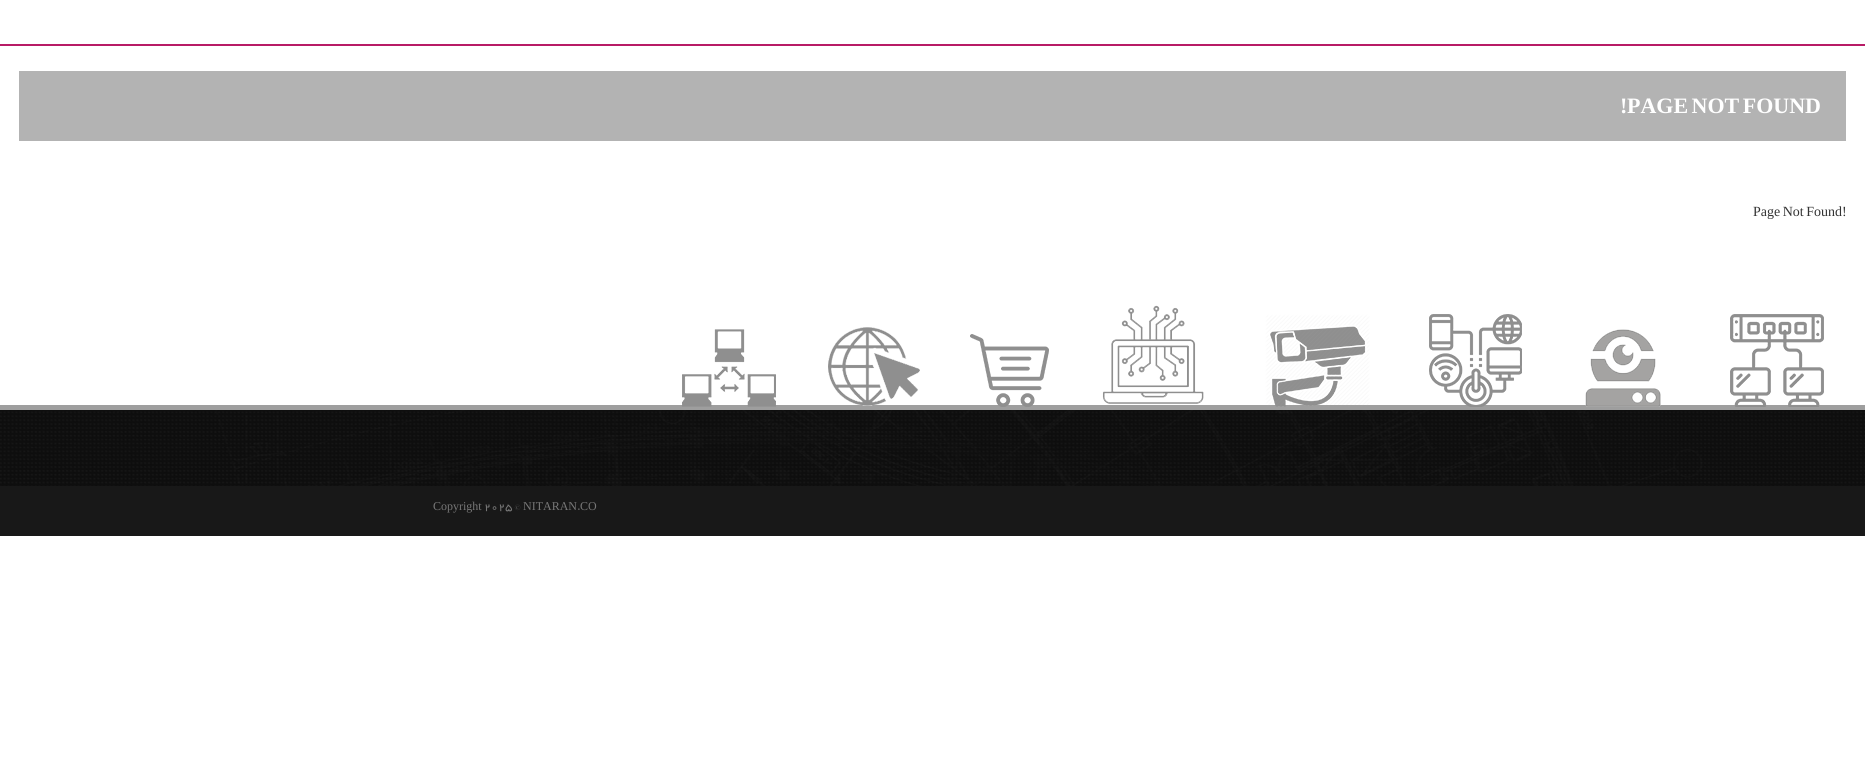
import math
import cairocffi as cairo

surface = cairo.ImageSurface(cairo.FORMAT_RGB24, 1865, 764)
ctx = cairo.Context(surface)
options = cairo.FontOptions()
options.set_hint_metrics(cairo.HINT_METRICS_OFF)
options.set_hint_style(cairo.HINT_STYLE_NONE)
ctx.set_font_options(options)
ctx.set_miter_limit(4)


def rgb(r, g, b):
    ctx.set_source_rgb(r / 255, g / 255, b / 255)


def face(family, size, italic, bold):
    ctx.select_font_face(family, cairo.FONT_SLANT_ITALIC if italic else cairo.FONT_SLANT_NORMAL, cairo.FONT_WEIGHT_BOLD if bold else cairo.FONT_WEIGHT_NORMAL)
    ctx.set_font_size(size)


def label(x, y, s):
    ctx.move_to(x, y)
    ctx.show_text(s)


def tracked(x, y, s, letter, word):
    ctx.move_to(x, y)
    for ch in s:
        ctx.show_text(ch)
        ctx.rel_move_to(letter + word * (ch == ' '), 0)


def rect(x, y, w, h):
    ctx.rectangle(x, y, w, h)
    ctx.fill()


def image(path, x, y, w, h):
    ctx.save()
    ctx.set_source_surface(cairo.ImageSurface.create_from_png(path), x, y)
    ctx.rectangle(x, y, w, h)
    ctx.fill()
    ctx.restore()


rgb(255, 255, 255)
ctx.paint()
rgb(184, 27, 102)
rect(0, 44, 1865, 2)
rgb(179, 179, 179)
rect(19, 71, 1827, 70)
face('Liberation Serif', 22, 0, 1)
rgb(255, 255, 255)
label(1620, 113, '!')
tracked(1627, 113, 'PAGE NOT FOUND', 0, -2)
face('Liberation Serif', 14, 0, 0)
rgb(51, 51, 51)
tracked(1753, 216, 'Page Not Found!', 0, -1)
rgb(158, 158, 158)
rect(0, 405, 1865, 5)
image('image0.png', 682, 305, 1142, 102)
image('image1.png', 0, 410, 1865, 76)
rgb(24, 24, 24)
rect(0, 486, 1865, 50)
face('Liberation Serif', 12, 0, 0)
rgb(119, 119, 119)
label(433, 510, 'Copyright')
face('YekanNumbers', 12, 0, 0)
label(484, 510, '2025')
face('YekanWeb', 12, 0, 0)
label(514, 510, '©')
face('Liberation Serif', 12, 0, 0)
label(523, 510, 'NITARAN')
face('YekanWeb', 12, 0, 0)
label(577, 510, '.')
face('Liberation Serif', 12, 0, 0)
label(580, 510, 'CO')
surface.write_to_png('render.png')
